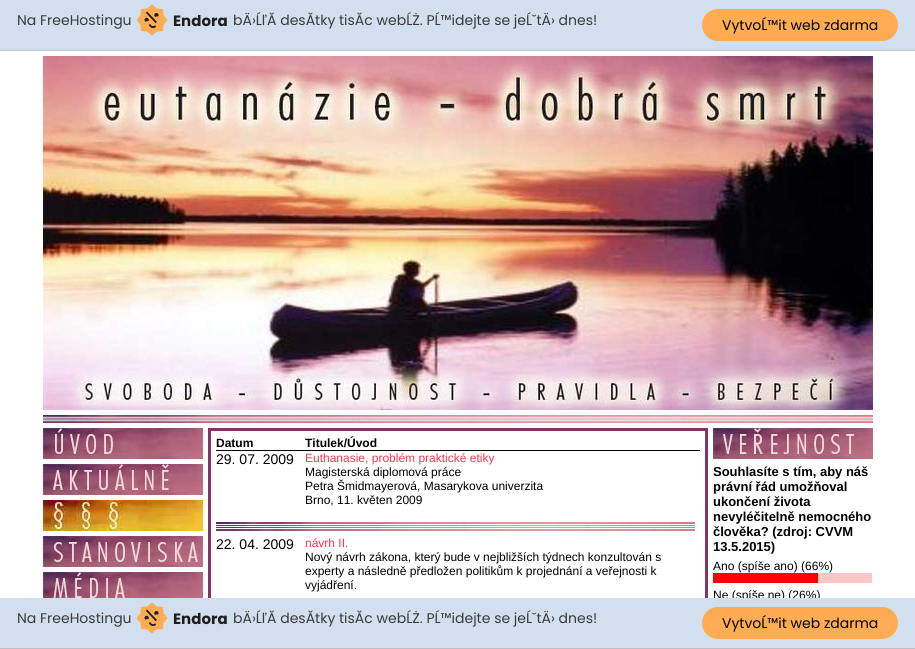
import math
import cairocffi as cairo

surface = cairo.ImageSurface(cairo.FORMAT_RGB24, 915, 649)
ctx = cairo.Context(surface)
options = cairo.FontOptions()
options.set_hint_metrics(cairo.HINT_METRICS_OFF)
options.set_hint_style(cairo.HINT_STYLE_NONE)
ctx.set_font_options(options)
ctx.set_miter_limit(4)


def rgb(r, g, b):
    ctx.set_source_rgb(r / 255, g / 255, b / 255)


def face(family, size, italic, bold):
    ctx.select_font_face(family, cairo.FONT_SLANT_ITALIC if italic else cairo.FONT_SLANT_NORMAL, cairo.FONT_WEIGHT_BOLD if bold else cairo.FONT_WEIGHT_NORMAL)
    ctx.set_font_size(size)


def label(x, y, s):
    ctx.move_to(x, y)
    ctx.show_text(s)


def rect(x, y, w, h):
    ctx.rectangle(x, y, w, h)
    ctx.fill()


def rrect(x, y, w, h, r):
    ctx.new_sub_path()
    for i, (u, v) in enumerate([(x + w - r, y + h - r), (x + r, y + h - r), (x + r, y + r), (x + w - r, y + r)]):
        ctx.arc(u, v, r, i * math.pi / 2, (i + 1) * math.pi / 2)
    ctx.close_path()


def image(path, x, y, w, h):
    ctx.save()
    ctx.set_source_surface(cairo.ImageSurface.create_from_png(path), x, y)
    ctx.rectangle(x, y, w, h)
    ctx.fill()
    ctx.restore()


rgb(255, 255, 255)
ctx.paint()
rgb(210, 223, 239)
rect(0, 0, 915, 50)
rgb(190, 191, 196)
rect(0, 50, 915, 1)
face('Poppins', 14, 0, 0)
rgb(58, 58, 58)
label(17, 25, 'Na FreeHostingu')
image('image0.png', 136, 4, 32, 32)
face('Poppins', 15, 0, 1)
rgb(30, 30, 30)
label(173, 26, 'Endora')
face('Poppins', 14, 0, 0)
rgb(58, 58, 58)
label(233, 25, 'bÄ›ĹľĂ desĂtky tisĂc webĹŻ. PĹ™idejte se jeĹˇtÄ› dnes!')
rgb(255, 172, 82)
rrect(702, 9, 196, 32, 16)
ctx.fill()
rgb(0, 0, 0)
label(722, 30, 'VytvoĹ™it web zdarma')
image('image1.png', 43, 56, 830, 354)
image('image2.png', 43, 415, 830, 8)
image('image3.png', 43, 428, 160, 31)
image('image4.png', 43, 464, 160, 31)
image('image5.png', 43, 500, 160, 31)
image('image6.png', 43, 536, 160, 31)
image('image7.png', 43, 572, 160, 26)
ctx.rectangle(209.5, 429.5, 497, 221)
rgb(128, 54, 99)
ctx.set_line_width(3)
ctx.stroke()
rgb(0, 0, 0)
rect(216, 450, 484, 1)
face('Liberation Sans', 12, 0, 1)
label(216, 447, 'Datum')
label(305, 447, 'Titulek/Úvod')
face('Liberation Sans', 14, 0, 0)
label(216, 464, '29. 07. 2009')
face('Liberation Sans', 12, 0, 0)
rgb(250, 54, 77)
label(305, 462, 'Euthanasie, problém praktické etiky')
rgb(0, 0, 0)
label(305, 476, 'Magisterská diplomová práce')
label(305, 490, 'Petra Šmidmayerová, Masarykova univerzita')
label(305, 504, 'Brno, 11. květen 2009')
image('image8.png', 216, 522, 479, 9)
face('Liberation Sans', 14, 0, 0)
label(216, 549, '22. 04. 2009')
face('Liberation Sans', 12, 0, 0)
rgb(250, 54, 77)
label(305, 547, 'návrh II.')
rgb(0, 0, 0)
label(305, 561, 'Nový návrh zákona, který bude v nejbližších týdnech konzultován s')
label(305, 575, 'experty a následně předložen politikům k projednání a veřejnosti k')
label(305, 589, 'vyjádření.')
image('image9.png', 713, 428, 160, 31)
face('Liberation Sans', 13, 0, 1)
label(713, 476, 'Souhlasíte s tím, aby náš')
label(713, 491, 'právní řád umožňoval')
label(713, 506, 'ukončení života')
label(713, 521, 'nevyléčitelně nemocného')
label(713, 536, 'člověka? (zdroj: CVVM')
label(713, 551, '13.5.2015)')
face('Liberation Sans', 12, 0, 0)
label(713, 570, 'Ano (spíše ano) (66%)')
rgb(255, 0, 0)
rect(713, 573, 105, 10)
rgb(255, 198, 198)
rect(818, 573, 54, 10)
rgb(0, 0, 0)
label(713, 599, 'Ne (spíše ne) (26%)')
rgb(210, 223, 239)
rect(0, 598, 915, 50)
rgb(190, 191, 196)
rect(0, 648, 915, 1)
face('Poppins', 14, 0, 0)
rgb(58, 58, 58)
label(17, 623, 'Na FreeHostingu')
image('image0.png', 136, 602, 32, 32)
face('Poppins', 15, 0, 1)
rgb(30, 30, 30)
label(173, 624, 'Endora')
face('Poppins', 14, 0, 0)
rgb(58, 58, 58)
label(233, 623, 'bÄ›ĹľĂ desĂtky tisĂc webĹŻ. PĹ™idejte se jeĹˇtÄ› dnes!')
rgb(255, 172, 82)
rrect(702, 607, 196, 32, 16)
ctx.fill()
rgb(0, 0, 0)
label(722, 628, 'VytvoĹ™it web zdarma')
surface.write_to_png('render.png')
